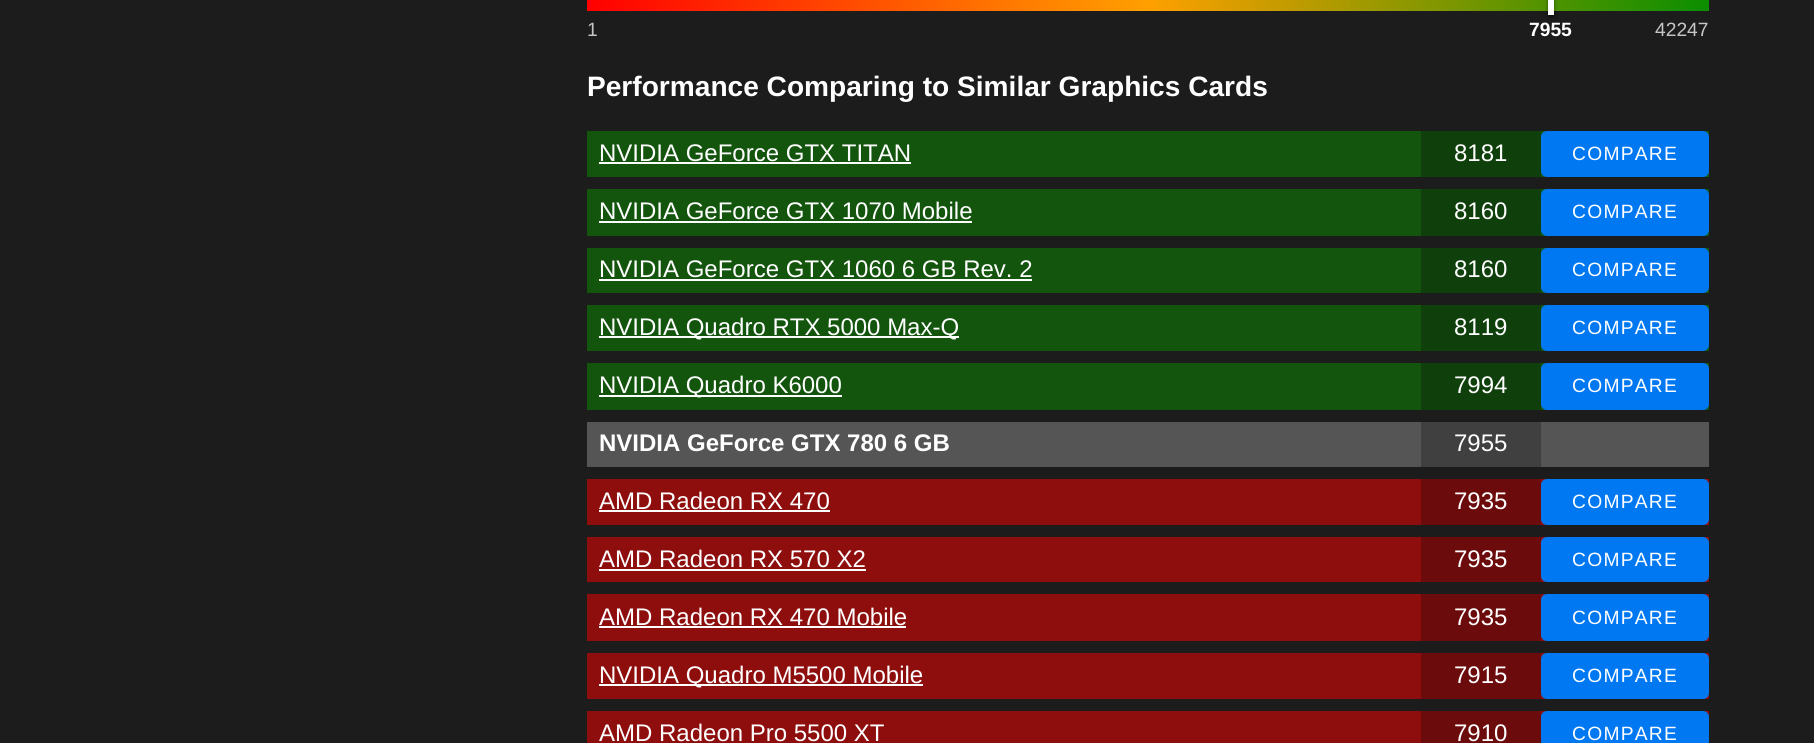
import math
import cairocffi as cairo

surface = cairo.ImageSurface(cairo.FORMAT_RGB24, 1814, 743)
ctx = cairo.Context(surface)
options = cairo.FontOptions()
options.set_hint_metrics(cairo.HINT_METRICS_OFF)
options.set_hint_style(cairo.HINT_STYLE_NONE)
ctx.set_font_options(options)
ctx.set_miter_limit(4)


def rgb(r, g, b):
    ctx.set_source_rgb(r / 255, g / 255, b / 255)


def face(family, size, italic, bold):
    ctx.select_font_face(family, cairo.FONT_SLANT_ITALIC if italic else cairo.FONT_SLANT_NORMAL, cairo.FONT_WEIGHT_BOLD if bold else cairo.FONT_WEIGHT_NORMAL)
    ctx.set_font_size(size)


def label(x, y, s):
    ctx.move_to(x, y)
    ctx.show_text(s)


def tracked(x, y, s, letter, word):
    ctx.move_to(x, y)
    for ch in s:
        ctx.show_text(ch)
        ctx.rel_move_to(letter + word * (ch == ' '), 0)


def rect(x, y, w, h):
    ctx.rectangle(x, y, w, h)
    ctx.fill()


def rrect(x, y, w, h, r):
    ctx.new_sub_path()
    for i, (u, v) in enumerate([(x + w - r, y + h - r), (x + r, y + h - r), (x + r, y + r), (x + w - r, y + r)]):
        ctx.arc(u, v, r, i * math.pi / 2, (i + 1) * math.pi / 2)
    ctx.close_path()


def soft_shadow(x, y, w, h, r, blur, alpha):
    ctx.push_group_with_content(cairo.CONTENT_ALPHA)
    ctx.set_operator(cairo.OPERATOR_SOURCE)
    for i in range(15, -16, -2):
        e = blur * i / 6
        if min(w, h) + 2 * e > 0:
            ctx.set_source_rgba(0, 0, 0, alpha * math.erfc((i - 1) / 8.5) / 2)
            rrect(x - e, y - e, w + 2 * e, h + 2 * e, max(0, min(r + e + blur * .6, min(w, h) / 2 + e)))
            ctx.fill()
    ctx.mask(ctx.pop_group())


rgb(28, 28, 28)
ctx.paint()
gradient = cairo.LinearGradient(587, -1.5, 1709, -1.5)
gradient.add_color_stop_rgba(0, 1, 0, 0, 1)
gradient.add_color_stop_rgba(0.5, 1, 0.627, 0, 1)
gradient.add_color_stop_rgba(1, 0.043, 0.557, 0, 1)
ctx.set_source(gradient)
rect(587, 0, 1122, 11)
face('Liberation Sans', 19.25, 0, 0)
rgb(198, 198, 198)
label(587, 36, '1')
rgb(0, 0, 0)
soft_shadow(1548, -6, 6, 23, 0, 2, 0.5)
rgb(255, 255, 255)
rect(1548, 0, 6, 15)
face('Liberation Sans', 19.25, 0, 1)
label(1529, 36, '7955')
face('Liberation Sans', 19.25, 0, 0)
rgb(198, 198, 198)
label(1655, 36, '42247')
face('Liberation Sans', 28.1, 0, 1)
rgb(255, 255, 255)
label(587, 96, 'Performance Comparing to Similar Graphics Cards')
rgb(20, 85, 14)
rect(587, 131, 1122, 46)
face('Liberation Sans', 24, 0, 0)
rgb(255, 255, 255)
label(599, 161, 'NVIDIA GeForce GTX TITAN')
rect(599, 162, 312, 2)
rgb(15, 64, 11)
rect(1421, 131, 120, 46)
rgb(255, 255, 255)
label(1454, 161, '8181')
rgb(0, 120, 242)
rrect(1541, 131, 168, 46, 6)
ctx.fill()
face('Liberation Sans', 19.25, 0, 0)
rgb(255, 255, 255)
tracked(1572, 160, 'COMPARE', 1.25, 0)
rgb(20, 85, 14)
rect(587, 189, 1122, 47)
face('Liberation Sans', 24, 0, 0)
rgb(255, 255, 255)
label(599, 219, 'NVIDIA GeForce GTX 1070 Mobile')
rect(599, 221, 373, 2)
rgb(15, 64, 11)
rect(1421, 189, 120, 47)
rgb(255, 255, 255)
label(1454, 219, '8160')
rgb(0, 120, 242)
rrect(1541, 189, 168, 47, 6)
ctx.fill()
face('Liberation Sans', 19.25, 0, 0)
rgb(255, 255, 255)
tracked(1572, 218, 'COMPARE', 1.25, 0)
rgb(20, 85, 14)
rect(587, 248, 1122, 45)
face('Liberation Sans', 24, 0, 0)
rgb(255, 255, 255)
label(599, 277, 'NVIDIA GeForce GTX 1060 6 GB Rev. 2')
rect(599, 279, 433, 2)
rgb(15, 64, 11)
rect(1421, 248, 120, 45)
rgb(255, 255, 255)
label(1454, 277, '8160')
rgb(0, 120, 242)
rrect(1541, 248, 168, 45, 6)
ctx.fill()
face('Liberation Sans', 19.25, 0, 0)
rgb(255, 255, 255)
tracked(1572, 276, 'COMPARE', 1.25, 0)
rgb(20, 85, 14)
rect(587, 305, 1122, 46)
rgb(255, 255, 255)
rect(599, 336, 360, 2)
face('Liberation Sans', 24, 0, 0)
label(599, 335, 'NVIDIA Quadro RTX 5000 Max-Q')
rgb(15, 64, 11)
rect(1421, 305, 120, 46)
rgb(255, 255, 255)
label(1454, 335, '8119')
rgb(0, 120, 242)
rrect(1541, 305, 168, 46, 6)
ctx.fill()
face('Liberation Sans', 19.25, 0, 0)
rgb(255, 255, 255)
tracked(1572, 334, 'COMPARE', 1.25, 0)
rgb(20, 85, 14)
rect(587, 363, 1122, 47)
rgb(255, 255, 255)
rect(599, 395, 243, 2)
face('Liberation Sans', 24, 0, 0)
label(599, 393, 'NVIDIA Quadro K6000')
rgb(15, 64, 11)
rect(1421, 363, 120, 47)
rgb(255, 255, 255)
label(1454, 393, '7994')
rgb(0, 120, 242)
rrect(1541, 363, 168, 47, 6)
ctx.fill()
face('Liberation Sans', 19.25, 0, 0)
rgb(255, 255, 255)
tracked(1572, 392, 'COMPARE', 1.25, 0)
rgb(85, 85, 85)
rect(587, 422, 1122, 45)
face('Liberation Sans', 24, 0, 1)
rgb(255, 255, 255)
label(599, 451, 'NVIDIA GeForce GTX 780 6 GB')
rgb(64, 64, 64)
rect(1421, 422, 120, 45)
face('Liberation Sans', 24, 0, 0)
rgb(255, 255, 255)
label(1454, 451, '7955')
rgb(142, 14, 14)
rect(587, 479, 1122, 46)
rgb(255, 255, 255)
label(599, 509, 'AMD Radeon RX 470')
rect(599, 510, 231, 2)
rgb(107, 11, 11)
rect(1421, 479, 120, 46)
rgb(255, 255, 255)
label(1454, 509, '7935')
rgb(0, 120, 242)
rrect(1541, 479, 168, 46, 6)
ctx.fill()
face('Liberation Sans', 19.25, 0, 0)
rgb(255, 255, 255)
tracked(1572, 508, 'COMPARE', 1.25, 0)
rgb(142, 14, 14)
rect(587, 537, 1122, 45)
face('Liberation Sans', 24, 0, 0)
rgb(255, 255, 255)
label(599, 567, 'AMD Radeon RX 570 X2')
rect(599, 569, 267, 2)
rgb(107, 11, 11)
rect(1421, 537, 120, 45)
rgb(255, 255, 255)
label(1454, 567, '7935')
rgb(0, 120, 242)
rrect(1541, 537, 168, 45, 6)
ctx.fill()
face('Liberation Sans', 19.25, 0, 0)
rgb(255, 255, 255)
tracked(1572, 566, 'COMPARE', 1.25, 0)
rgb(142, 14, 14)
rect(587, 594, 1122, 47)
face('Liberation Sans', 24, 0, 0)
rgb(255, 255, 255)
label(599, 625, 'AMD Radeon RX 470 Mobile')
rect(599, 626, 307, 2)
rgb(107, 11, 11)
rect(1421, 594, 120, 47)
rgb(255, 255, 255)
label(1454, 625, '7935')
rgb(0, 120, 242)
rrect(1541, 594, 168, 47, 6)
ctx.fill()
face('Liberation Sans', 19.25, 0, 0)
rgb(255, 255, 255)
tracked(1572, 624, 'COMPARE', 1.25, 0)
rgb(142, 14, 14)
rect(587, 653, 1122, 46)
rgb(255, 255, 255)
rect(599, 684, 324, 2)
face('Liberation Sans', 24, 0, 0)
label(599, 683, 'NVIDIA Quadro M5500 Mobile')
rgb(107, 11, 11)
rect(1421, 653, 120, 46)
rgb(255, 255, 255)
label(1454, 683, '7915')
rgb(0, 120, 242)
rrect(1541, 653, 168, 46, 6)
ctx.fill()
face('Liberation Sans', 19.25, 0, 0)
rgb(255, 255, 255)
tracked(1572, 682, 'COMPARE', 1.25, 0)
rgb(142, 14, 14)
rect(587, 711, 1122, 32)
face('Liberation Sans', 24, 0, 0)
rgb(255, 255, 255)
label(599, 741, 'AMD Radeon Pro 5500 XT')
rgb(107, 11, 11)
rect(1421, 711, 120, 32)
rgb(255, 255, 255)
label(1454, 741, '7910')
rgb(0, 120, 242)
rrect(1541, 711, 168, 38, 6)
ctx.fill()
face('Liberation Sans', 19.25, 0, 0)
rgb(255, 255, 255)
tracked(1572, 740, 'COMPARE', 1.25, 0)
surface.write_to_png('render.png')
